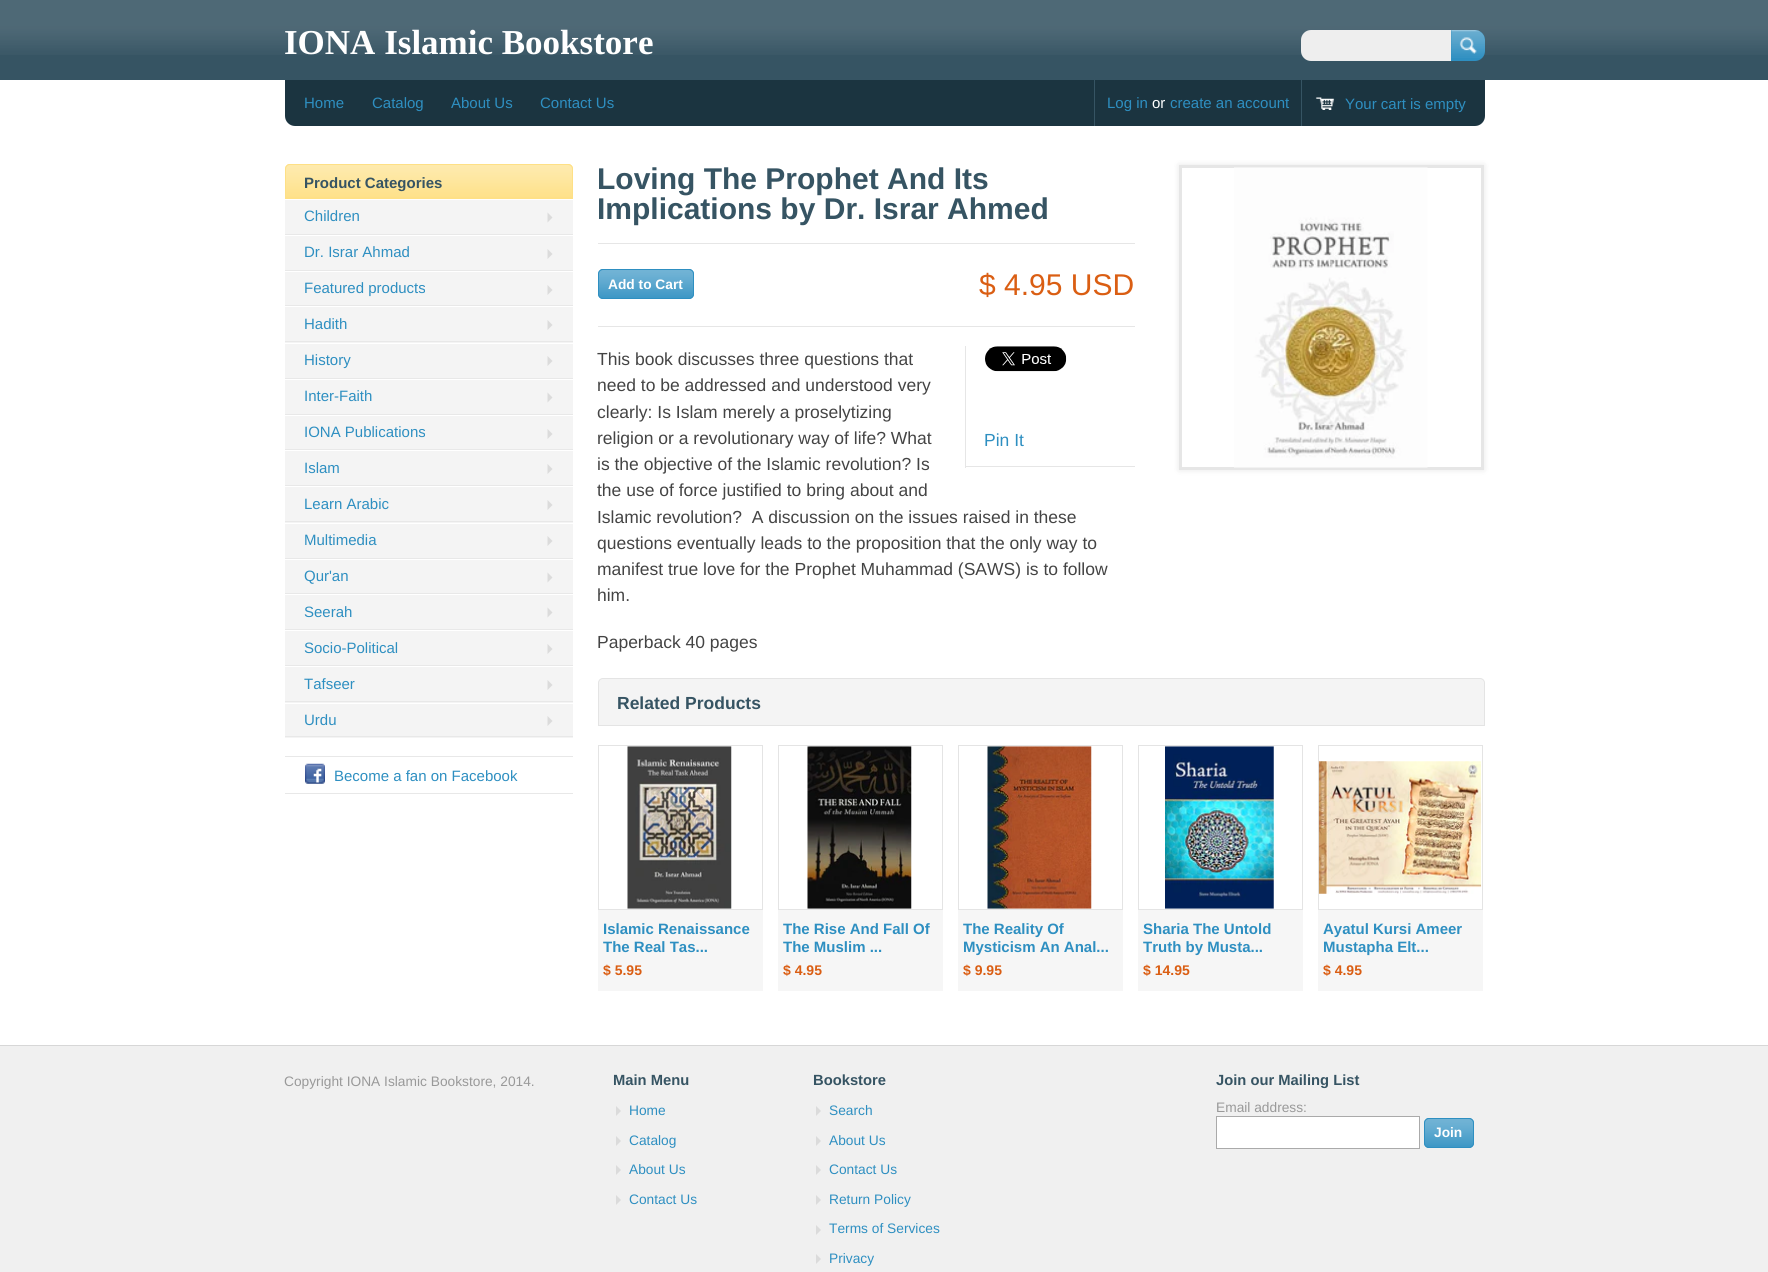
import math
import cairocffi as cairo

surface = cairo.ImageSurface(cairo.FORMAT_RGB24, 1768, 1272)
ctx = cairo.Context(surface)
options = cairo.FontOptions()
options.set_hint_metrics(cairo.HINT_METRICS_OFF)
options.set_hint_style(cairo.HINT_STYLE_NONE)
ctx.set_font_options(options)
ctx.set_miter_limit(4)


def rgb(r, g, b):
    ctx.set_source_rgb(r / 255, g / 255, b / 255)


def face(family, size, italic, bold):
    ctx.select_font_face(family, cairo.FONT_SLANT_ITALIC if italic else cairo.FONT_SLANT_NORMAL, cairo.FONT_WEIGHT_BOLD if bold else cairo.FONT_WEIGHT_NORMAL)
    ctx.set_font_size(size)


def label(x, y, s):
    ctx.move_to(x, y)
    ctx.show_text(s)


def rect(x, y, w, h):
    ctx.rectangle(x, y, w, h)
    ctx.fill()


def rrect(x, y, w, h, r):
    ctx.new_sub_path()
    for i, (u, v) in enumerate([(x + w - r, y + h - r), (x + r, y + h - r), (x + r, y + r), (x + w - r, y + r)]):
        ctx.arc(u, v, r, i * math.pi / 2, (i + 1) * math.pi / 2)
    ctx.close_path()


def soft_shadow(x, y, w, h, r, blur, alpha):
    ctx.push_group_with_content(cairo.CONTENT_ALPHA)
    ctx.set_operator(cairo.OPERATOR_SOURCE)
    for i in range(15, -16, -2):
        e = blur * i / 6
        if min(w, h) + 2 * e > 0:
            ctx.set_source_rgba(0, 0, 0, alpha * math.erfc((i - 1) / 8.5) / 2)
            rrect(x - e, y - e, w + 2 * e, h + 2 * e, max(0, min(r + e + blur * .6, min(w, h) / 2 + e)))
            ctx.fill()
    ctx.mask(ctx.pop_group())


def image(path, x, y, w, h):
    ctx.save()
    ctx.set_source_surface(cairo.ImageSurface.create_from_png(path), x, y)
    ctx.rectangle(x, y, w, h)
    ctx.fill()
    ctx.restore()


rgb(240, 240, 240)
ctx.paint()
rgb(54, 84, 99)
rect(0, 0, 1768, 80)
image('image0.png', 0, 0, 1768, 55)
face('Liberation Serif', 35, 0, 1)
rgb(255, 255, 255)
label(284, 54, 'IONA Islamic Bookstore')
rgb(238, 238, 238)
ctx.new_path()
ctx.move_to(1311, 30)
ctx.line_to(1451, 30)
ctx.line_to(1451, 61)
ctx.line_to(1311, 61)
ctx.curve_to(1305.5, 61, 1301, 56.5, 1301, 51)
ctx.line_to(1301, 40)
ctx.curve_to(1301, 34.5, 1305.5, 30, 1311, 30)
ctx.close_path()
ctx.fill()
rgb(46, 143, 193)
ctx.new_path()
ctx.move_to(1451, 30)
ctx.line_to(1475, 30)
ctx.curve_to(1480.5, 30, 1485, 34.5, 1485, 40)
ctx.line_to(1485, 51)
ctx.curve_to(1485, 56.5, 1480.5, 61, 1475, 61)
ctx.line_to(1451, 61)
ctx.close_path()
ctx.fill()
image('image1.png', 1451, 30, 34, 28)
rgb(255, 255, 255)
rect(0, 80, 1768, 965)
rgb(27, 52, 64)
ctx.new_path()
ctx.move_to(285, 80)
ctx.line_to(1485, 80)
ctx.line_to(1485, 116)
ctx.curve_to(1485, 121.5, 1480.5, 126, 1475, 126)
ctx.line_to(295, 126)
ctx.curve_to(289.5, 126, 285, 121.5, 285, 116)
ctx.close_path()
ctx.fill()
face('Liberation Sans', 15, 0, 0)
rgb(46, 143, 193)
label(304, 108, 'Home')
label(372, 108, 'Catalog')
label(451, 108, 'About Us')
label(540, 108, 'Contact Us')
rgb(54, 84, 99)
rect(1094, 80, 1, 46)
rgb(46, 143, 193)
label(1107, 108, 'Log in')
rgb(255, 255, 255)
label(1152, 108, 'or')
rgb(46, 143, 193)
label(1170, 108, 'create an account')
rgb(54, 84, 99)
rect(1301, 80, 1, 46)
image('image2.png', 1315, 97, 20, 13)
rgb(46, 143, 193)
label(1345, 109, 'Your cart is empty')
rgb(254, 224, 134)
ctx.new_path()
ctx.move_to(290, 164)
ctx.line_to(568, 164)
ctx.curve_to(571, 164, 573, 166, 573, 169)
ctx.line_to(573, 199)
ctx.line_to(285, 199)
ctx.line_to(285, 169)
ctx.curve_to(285, 166, 287, 164, 290, 164)
ctx.close_path()
ctx.fill()
image('image3.png', 285, 165, 288, 32)
ctx.new_path()
ctx.move_to(290, 164.5)
ctx.line_to(568, 164.5)
ctx.curve_to(570.5, 164.5, 572.5, 166.5, 572.5, 169)
ctx.line_to(572.5, 198.5)
ctx.line_to(285.5, 198.5)
ctx.line_to(285.5, 169)
ctx.curve_to(285.5, 166.5, 287.5, 164.5, 290, 164.5)
ctx.close_path()
ctx.set_line_width(1)
ctx.stroke()
face('Liberation Sans', 15, 0, 1)
rgb(54, 84, 99)
label(304, 188, 'Product Categories')
rgb(244, 244, 244)
rect(285, 200, 288, 34)
rgb(232, 232, 232)
rect(285, 234, 288, 1)
face('Liberation Sans', 15, 0, 0)
rgb(46, 143, 193)
label(304, 221, 'Children')
rgb(219, 219, 219)
ctx.new_path()
ctx.move_to(547.5, 222.5)
ctx.line_to(547.5, 212.5)
ctx.line_to(552.5, 217.5)
ctx.close_path()
ctx.fill()
rgb(244, 244, 244)
rect(285, 236, 288, 34)
rgb(232, 232, 232)
rect(285, 270, 288, 1)
rgb(46, 143, 193)
label(304, 257, 'Dr. Israr Ahmad')
rgb(219, 219, 219)
ctx.new_path()
ctx.move_to(547.5, 259)
ctx.line_to(547.5, 249)
ctx.line_to(552.5, 254)
ctx.close_path()
ctx.fill()
rgb(244, 244, 244)
rect(285, 272, 288, 33)
rgb(232, 232, 232)
rect(285, 305, 288, 1)
rgb(46, 143, 193)
label(304, 293, 'Featured products')
rgb(219, 219, 219)
ctx.new_path()
ctx.move_to(547.5, 295)
ctx.line_to(547.5, 285)
ctx.line_to(552.5, 290)
ctx.close_path()
ctx.fill()
rgb(244, 244, 244)
rect(285, 307, 288, 36)
rgb(232, 232, 232)
rect(285, 341, 288, 1)
rgb(46, 143, 193)
label(304, 329, 'Hadith')
rgb(219, 219, 219)
ctx.new_path()
ctx.move_to(547.5, 330)
ctx.line_to(547.5, 320)
ctx.line_to(552.5, 325)
ctx.close_path()
ctx.fill()
rgb(244, 244, 244)
rect(285, 344, 288, 34)
rgb(232, 232, 232)
rect(285, 378, 288, 1)
rgb(46, 143, 193)
label(304, 365, 'History')
rgb(219, 219, 219)
ctx.new_path()
ctx.move_to(547.5, 366)
ctx.line_to(547.5, 356)
ctx.line_to(552.5, 361)
ctx.close_path()
ctx.fill()
rgb(244, 244, 244)
rect(285, 380, 288, 34)
rgb(232, 232, 232)
rect(285, 414, 288, 1)
rgb(46, 143, 193)
label(304, 401, 'Inter-Faith')
rgb(219, 219, 219)
ctx.new_path()
ctx.move_to(547.5, 402.5)
ctx.line_to(547.5, 392.5)
ctx.line_to(552.5, 397.5)
ctx.close_path()
ctx.fill()
rgb(244, 244, 244)
rect(285, 416, 288, 33)
rgb(232, 232, 232)
rect(285, 449, 288, 1)
rgb(46, 143, 193)
label(304, 437, 'IONA Publications')
rgb(219, 219, 219)
ctx.new_path()
ctx.move_to(547.5, 439)
ctx.line_to(547.5, 429)
ctx.line_to(552.5, 434)
ctx.close_path()
ctx.fill()
rgb(244, 244, 244)
rect(285, 451, 288, 34)
rgb(232, 232, 232)
rect(285, 485, 288, 1)
rgb(46, 143, 193)
label(304, 473, 'Islam')
rgb(219, 219, 219)
ctx.new_path()
ctx.move_to(547.5, 474)
ctx.line_to(547.5, 464)
ctx.line_to(552.5, 469)
ctx.close_path()
ctx.fill()
rgb(244, 244, 244)
rect(285, 487, 288, 36)
rgb(232, 232, 232)
rect(285, 521, 288, 1)
rgb(46, 143, 193)
label(304, 509, 'Learn Arabic')
rgb(219, 219, 219)
ctx.new_path()
ctx.move_to(547.5, 510)
ctx.line_to(547.5, 500)
ctx.line_to(552.5, 505)
ctx.close_path()
ctx.fill()
rgb(244, 244, 244)
rect(285, 524, 288, 34)
rgb(232, 232, 232)
rect(285, 558, 288, 1)
rgb(46, 143, 193)
label(304, 545, 'Multimedia')
rgb(219, 219, 219)
ctx.new_path()
ctx.move_to(547.5, 546)
ctx.line_to(547.5, 536)
ctx.line_to(552.5, 541)
ctx.close_path()
ctx.fill()
rgb(244, 244, 244)
rect(285, 560, 288, 33)
rgb(232, 232, 232)
rect(285, 593, 288, 1)
rgb(46, 143, 193)
label(304, 581, 'Qur\'an')
rgb(219, 219, 219)
ctx.new_path()
ctx.move_to(547.5, 582.5)
ctx.line_to(547.5, 572.5)
ctx.line_to(552.5, 577.5)
ctx.close_path()
ctx.fill()
rgb(244, 244, 244)
rect(285, 595, 288, 34)
rgb(232, 232, 232)
rect(285, 629, 288, 1)
rgb(46, 143, 193)
label(304, 617, 'Seerah')
rgb(219, 219, 219)
ctx.new_path()
ctx.move_to(547.5, 617.5)
ctx.line_to(547.5, 607.5)
ctx.line_to(552.5, 612.5)
ctx.close_path()
ctx.fill()
rgb(244, 244, 244)
rect(285, 631, 288, 34)
rgb(232, 232, 232)
rect(285, 665, 288, 1)
rgb(46, 143, 193)
label(304, 653, 'Socio-Political')
rgb(219, 219, 219)
ctx.new_path()
ctx.move_to(547.5, 654)
ctx.line_to(547.5, 644)
ctx.line_to(552.5, 649)
ctx.close_path()
ctx.fill()
rgb(244, 244, 244)
rect(285, 667, 288, 36)
rgb(232, 232, 232)
rect(285, 701, 288, 1)
rgb(46, 143, 193)
label(304, 689, 'Tafseer')
rgb(219, 219, 219)
ctx.new_path()
ctx.move_to(547.5, 690)
ctx.line_to(547.5, 680)
ctx.line_to(552.5, 685)
ctx.close_path()
ctx.fill()
rgb(244, 244, 244)
rect(285, 704, 288, 34)
rgb(232, 232, 232)
rect(285, 736, 288, 1)
rgb(46, 143, 193)
label(304, 725, 'Urdu')
rgb(219, 219, 219)
ctx.new_path()
ctx.move_to(547.5, 726)
ctx.line_to(547.5, 716)
ctx.line_to(552.5, 721)
ctx.close_path()
ctx.fill()
rgb(232, 232, 232)
rect(285, 756, 288, 1)
image('image4.png', 305, 763, 20, 21)
rect(285, 793, 288, 1)
rgb(46, 143, 193)
label(334, 781, 'Become a fan on Facebook')
rgb(230, 230, 230)
rect(598, 243, 537, 1)
face('Liberation Sans', 30, 0, 1)
rgb(54, 84, 99)
label(597, 189, 'Loving The Prophet And Its')
label(597, 219, 'Implications by Dr. Israr Ahmed')
rgb(230, 230, 230)
rect(598, 326, 537, 1)
rgb(46, 143, 193)
rrect(598, 269, 96, 30, 5)
ctx.fill()
image('image5.png', 598, 270, 96, 29)
rrect(598.5, 269.5, 95, 29, 4.5)
ctx.stroke()
face('Liberation Sans', 13.75, 0, 1)
rgb(255, 255, 255)
label(608, 289, 'Add to Cart')
face('Liberation Sans', 30, 0, 0)
rgb(218, 94, 19)
label(979, 295, '$ 4.95 USD')
face('Liberation Sans', 17.5, 0, 0)
rgb(68, 68, 68)
label(597, 365, 'This book discusses three questions that')
label(597, 391, 'need to be addressed and understood very')
label(597, 418, 'clearly: Is Islam merely a proselytizing')
label(597, 444, 'religion or a revolutionary way of life? What')
label(597, 470, 'is the objective of the Islamic revolution? Is')
label(597, 496, 'the use of force justified to bring about and')
label(597, 523, 'Islamic revolution?  A discussion on the issues raised in these')
label(597, 549, 'questions eventually leads to the proposition that the only way to')
label(597, 575, 'manifest true love for the Prophet Muhammad (SAWS) is to follow')
label(597, 601, 'him.')
rgb(230, 230, 230)
rect(965, 466, 170, 1)
rect(965, 346, 1, 122)
image('image6.png', 985, 346, 82, 26)
rgb(46, 143, 193)
label(984, 446, 'Pin It')
rgb(68, 68, 68)
label(597, 648, 'Paperback 40 pages')
ctx.save()
ctx.set_fill_rule(cairo.FILL_RULE_EVEN_ODD)
ctx.new_path()
ctx.move_to(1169, 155)
ctx.line_to(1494, 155)
ctx.line_to(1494, 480)
ctx.line_to(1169, 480)
ctx.close_path()
ctx.move_to(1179, 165)
ctx.line_to(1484, 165)
ctx.line_to(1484, 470)
ctx.line_to(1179, 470)
ctx.close_path()
ctx.clip()
rgb(0, 0, 0)
soft_shadow(1179, 165, 305, 305, 0, 3, 0.1)
ctx.restore()
ctx.rectangle(1180.5, 166.5, 302, 302)
rgb(230, 230, 230)
ctx.set_line_width(3)
ctx.stroke()
image('image7.png', 1234, 167, 194, 301)
rgb(244, 244, 244)
ctx.new_path()
ctx.move_to(603, 678.5)
ctx.line_to(1480, 678.5)
ctx.curve_to(1482.5, 678.5, 1484.5, 680.5, 1484.5, 683)
ctx.line_to(1484.5, 725.5)
ctx.line_to(598.5, 725.5)
ctx.line_to(598.5, 683)
ctx.curve_to(598.5, 680.5, 600.5, 678.5, 603, 678.5)
ctx.close_path()
ctx.fill_preserve()
rgb(228, 228, 228)
ctx.set_line_width(1)
ctx.stroke()
face('Liberation Sans', 17.5, 0, 1)
rgb(54, 84, 99)
label(617, 709, 'Related Products')
ctx.rectangle(598.5, 745.5, 164, 164)
rgb(228, 228, 228)
ctx.stroke()
image('image8.png', 627, 746, 105, 163)
rgb(246, 246, 246)
rect(598, 910, 165, 81)
face('Liberation Sans', 15, 0, 1)
rgb(46, 143, 193)
label(603, 934, 'Islamic Renaissance')
label(603, 952, 'The Real Tas...')
face('Liberation Sans', 14, 0, 1)
rgb(218, 94, 19)
label(603, 975, '$ 5.95')
ctx.rectangle(778.5, 745.5, 164, 164)
rgb(228, 228, 228)
ctx.stroke()
image('image9.png', 807, 746, 105, 163)
rgb(246, 246, 246)
rect(778, 910, 165, 81)
face('Liberation Sans', 15, 0, 1)
rgb(46, 143, 193)
label(783, 934, 'The Rise And Fall Of')
label(783, 952, 'The Muslim ...')
face('Liberation Sans', 14, 0, 1)
rgb(218, 94, 19)
label(783, 975, '$ 4.95')
ctx.rectangle(958.5, 745.5, 164, 164)
rgb(228, 228, 228)
ctx.stroke()
image('image10.png', 987, 746, 105, 163)
rgb(246, 246, 246)
rect(958, 910, 165, 81)
face('Liberation Sans', 15, 0, 1)
rgb(46, 143, 193)
label(963, 934, 'The Reality Of')
label(963, 952, 'Mysticism An Anal...')
face('Liberation Sans', 14, 0, 1)
rgb(218, 94, 19)
label(963, 975, '$ 9.95')
ctx.rectangle(1138.5, 745.5, 164, 164)
rgb(228, 228, 228)
ctx.stroke()
image('image11.png', 1165, 746, 109, 163)
rgb(246, 246, 246)
rect(1138, 910, 165, 81)
face('Liberation Sans', 15, 0, 1)
rgb(46, 143, 193)
label(1143, 934, 'Sharia The Untold')
label(1143, 952, 'Truth by Musta...')
face('Liberation Sans', 14, 0, 1)
rgb(218, 94, 19)
label(1143, 975, '$ 14.95')
ctx.rectangle(1318.5, 745.5, 164, 164)
rgb(228, 228, 228)
ctx.stroke()
image('image12.png', 1318, 761, 164, 133)
rgb(246, 246, 246)
rect(1318, 910, 165, 81)
face('Liberation Sans', 15, 0, 1)
rgb(46, 143, 193)
label(1323, 934, 'Ayatul Kursi Ameer')
label(1323, 952, 'Mustapha Elt...')
face('Liberation Sans', 14, 0, 1)
rgb(218, 94, 19)
label(1323, 975, '$ 4.95')
rgb(215, 215, 215)
rect(0, 1045, 1768, 1)
face('Liberation Sans', 13.75, 0, 0)
rgb(153, 153, 153)
label(284, 1086, 'Copyright IONA Islamic Bookstore, 2014.')
face('Liberation Sans', 14.75, 0, 1)
rgb(54, 84, 99)
label(613, 1085, 'Main Menu')
rgb(219, 219, 219)
ctx.new_path()
ctx.move_to(616, 1116)
ctx.line_to(616, 1106)
ctx.line_to(621, 1111)
ctx.close_path()
ctx.fill()
face('Liberation Sans', 13.75, 0, 0)
rgb(46, 143, 193)
label(629, 1115, 'Home')
rgb(219, 219, 219)
ctx.new_path()
ctx.move_to(616, 1146)
ctx.line_to(616, 1136)
ctx.line_to(621, 1141)
ctx.close_path()
ctx.fill()
rgb(46, 143, 193)
label(629, 1145, 'Catalog')
rgb(219, 219, 219)
ctx.new_path()
ctx.move_to(616, 1175)
ctx.line_to(616, 1165)
ctx.line_to(621, 1170)
ctx.close_path()
ctx.fill()
rgb(46, 143, 193)
label(629, 1174, 'About Us')
rgb(219, 219, 219)
ctx.new_path()
ctx.move_to(616, 1205)
ctx.line_to(616, 1195)
ctx.line_to(621, 1200)
ctx.close_path()
ctx.fill()
rgb(46, 143, 193)
label(629, 1204, 'Contact Us')
face('Liberation Sans', 14.75, 0, 1)
rgb(54, 84, 99)
label(813, 1085, 'Bookstore')
rgb(219, 219, 219)
ctx.new_path()
ctx.move_to(816, 1116)
ctx.line_to(816, 1106)
ctx.line_to(821, 1111)
ctx.close_path()
ctx.fill()
face('Liberation Sans', 13.75, 0, 0)
rgb(46, 143, 193)
label(829, 1115, 'Search')
rgb(219, 219, 219)
ctx.new_path()
ctx.move_to(816, 1146)
ctx.line_to(816, 1136)
ctx.line_to(821, 1141)
ctx.close_path()
ctx.fill()
rgb(46, 143, 193)
label(829, 1145, 'About Us')
rgb(219, 219, 219)
ctx.new_path()
ctx.move_to(816, 1175)
ctx.line_to(816, 1165)
ctx.line_to(821, 1170)
ctx.close_path()
ctx.fill()
rgb(46, 143, 193)
label(829, 1174, 'Contact Us')
rgb(219, 219, 219)
ctx.new_path()
ctx.move_to(816, 1205)
ctx.line_to(816, 1195)
ctx.line_to(821, 1200)
ctx.close_path()
ctx.fill()
rgb(46, 143, 193)
label(829, 1204, 'Return Policy')
rgb(219, 219, 219)
ctx.new_path()
ctx.move_to(816, 1235)
ctx.line_to(816, 1225)
ctx.line_to(821, 1230)
ctx.close_path()
ctx.fill()
rgb(46, 143, 193)
label(829, 1233, 'Terms of Services')
rgb(219, 219, 219)
ctx.new_path()
ctx.move_to(816, 1264)
ctx.line_to(816, 1254)
ctx.line_to(821, 1259)
ctx.close_path()
ctx.fill()
rgb(46, 143, 193)
label(829, 1263, 'Privacy')
face('Liberation Sans', 14.75, 0, 1)
rgb(54, 84, 99)
label(1216, 1085, 'Join our Mailing List')
face('Liberation Sans', 13.75, 0, 0)
rgb(153, 153, 153)
label(1216, 1112, 'Email address:')
rgb(255, 255, 255)
ctx.rectangle(1216.5, 1116.5, 203, 32)
ctx.fill_preserve()
rgb(170, 170, 170)
ctx.stroke()
rgb(46, 143, 193)
rrect(1424, 1118, 50, 30, 5)
ctx.fill()
image('image13.png', 1424, 1118, 50, 29)
rrect(1424.5, 1118.5, 49, 29, 4.5)
ctx.stroke()
face('Liberation Sans', 13.75, 0, 1)
rgb(255, 255, 255)
label(1434, 1137, 'Join')
surface.write_to_png('render.png')
